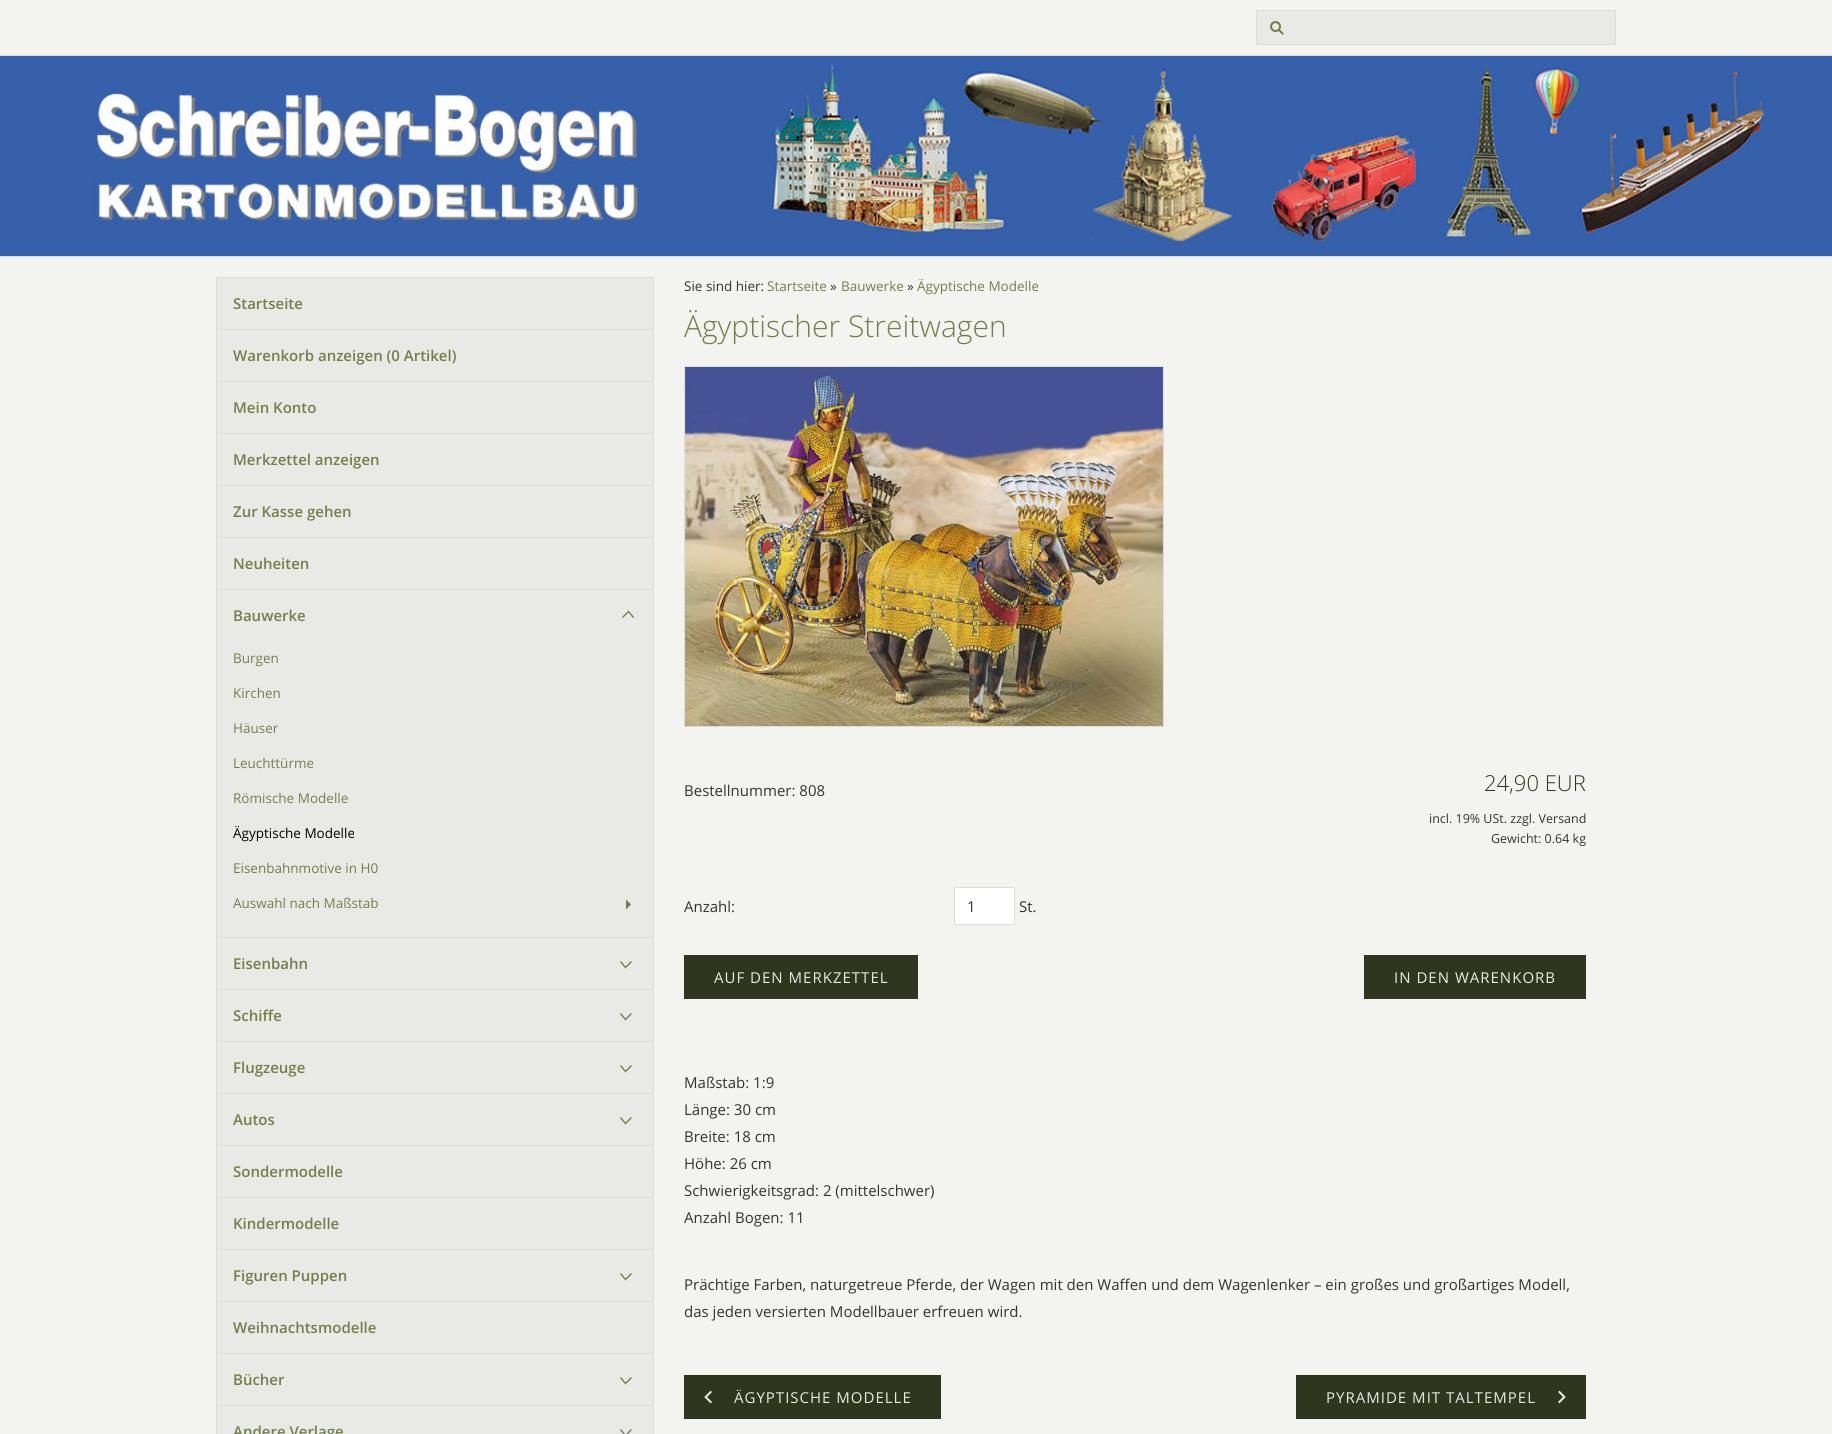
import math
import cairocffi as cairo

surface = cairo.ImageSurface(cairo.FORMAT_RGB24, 1832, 1434)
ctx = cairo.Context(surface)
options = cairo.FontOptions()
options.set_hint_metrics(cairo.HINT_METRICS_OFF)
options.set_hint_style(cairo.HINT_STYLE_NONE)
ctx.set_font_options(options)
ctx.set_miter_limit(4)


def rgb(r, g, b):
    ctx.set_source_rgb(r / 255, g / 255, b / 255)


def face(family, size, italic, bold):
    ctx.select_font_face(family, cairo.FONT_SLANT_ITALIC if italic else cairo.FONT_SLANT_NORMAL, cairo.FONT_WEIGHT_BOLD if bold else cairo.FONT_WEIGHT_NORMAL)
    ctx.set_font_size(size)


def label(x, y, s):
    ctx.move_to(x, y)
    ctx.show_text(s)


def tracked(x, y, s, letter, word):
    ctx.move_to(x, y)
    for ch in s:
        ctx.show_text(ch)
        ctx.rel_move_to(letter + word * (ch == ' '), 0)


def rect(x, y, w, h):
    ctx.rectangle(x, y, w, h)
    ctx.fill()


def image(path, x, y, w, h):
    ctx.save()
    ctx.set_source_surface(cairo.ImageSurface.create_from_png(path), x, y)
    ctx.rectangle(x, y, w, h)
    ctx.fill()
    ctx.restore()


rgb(243, 244, 239)
ctx.paint()
rgb(233, 234, 229)
rect(1257, 11, 358, 33)
image('image0.png', 1270, 21, 14, 14)
ctx.rectangle(1256.5, 10.5, 359, 34)
rgb(220, 221, 217)
ctx.set_line_width(1)
ctx.stroke()
rect(0, 55, 1832, 1)
rect(0, 256, 1832, 1)
image('image1.png', 0, 56, 1832, 200)
rgb(233, 234, 229)
ctx.rectangle(216.5, 277.5, 437, 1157)
ctx.fill_preserve()
rgb(220, 221, 217)
ctx.stroke()
rect(217, 329, 436, 1)
face('Open Sans SemiBold', 15, 0, 0)
rgb(115, 127, 73)
label(233, 309, 'Startseite')
rgb(220, 221, 217)
rect(217, 381, 436, 1)
rgb(115, 127, 73)
label(233, 361, 'Warenkorb anzeigen (0 Artikel)')
rgb(220, 221, 217)
rect(217, 433, 436, 1)
rgb(115, 127, 73)
label(233, 413, 'Mein Konto')
rgb(220, 221, 217)
rect(217, 485, 436, 1)
rgb(115, 127, 73)
label(233, 465, 'Merkzettel anzeigen')
rgb(220, 221, 217)
rect(217, 537, 436, 1)
rgb(115, 127, 73)
label(233, 517, 'Zur Kasse gehen')
rgb(220, 221, 217)
rect(217, 589, 436, 1)
rgb(115, 127, 73)
label(233, 569, 'Neuheiten')
rgb(220, 221, 217)
rect(217, 937, 436, 1)
rgb(115, 127, 73)
label(233, 621, 'Bauwerke')
image('image2.png', 621, 610, 14, 8)
face('Open Sans', 13.5, 0, 0)
label(233, 663, 'Burgen')
label(233, 698, 'Kirchen')
label(233, 733, 'Häuser')
label(233, 768, 'Leuchttürme')
label(233, 803, 'Römische Modelle')
rgb(0, 0, 0)
label(233, 838, 'Ägyptische Modelle')
rgb(115, 127, 73)
label(233, 873, 'Eisenbahnmotive in H0')
label(233, 908, 'Auswahl nach Maßstab')
image('image3.png', 626, 899, 5, 11)
rgb(220, 221, 217)
rect(217, 989, 436, 1)
face('Open Sans SemiBold', 15, 0, 0)
rgb(115, 127, 73)
label(233, 969, 'Eisenbahn')
image('image4.png', 619, 961, 14, 8)
rgb(220, 221, 217)
rect(217, 1041, 436, 1)
rgb(115, 127, 73)
label(233, 1021, 'Schiffe')
image('image4.png', 619, 1013, 14, 8)
rgb(220, 221, 217)
rect(217, 1093, 436, 1)
rgb(115, 127, 73)
label(233, 1073, 'Flugzeuge')
image('image4.png', 619, 1065, 14, 8)
rgb(220, 221, 217)
rect(217, 1145, 436, 1)
rgb(115, 127, 73)
label(233, 1125, 'Autos')
image('image4.png', 619, 1117, 14, 8)
rgb(220, 221, 217)
rect(217, 1197, 436, 1)
rgb(115, 127, 73)
label(233, 1177, 'Sondermodelle')
rgb(220, 221, 217)
rect(217, 1249, 436, 1)
rgb(115, 127, 73)
label(233, 1229, 'Kindermodelle')
rgb(220, 221, 217)
rect(217, 1301, 436, 1)
rgb(115, 127, 73)
label(233, 1281, 'Figuren Puppen')
image('image4.png', 619, 1273, 14, 8)
rgb(220, 221, 217)
rect(217, 1353, 436, 1)
rgb(115, 127, 73)
label(233, 1333, 'Weihnachtsmodelle')
rgb(220, 221, 217)
rect(217, 1405, 436, 1)
rgb(115, 127, 73)
label(233, 1385, 'Bücher')
image('image4.png', 619, 1377, 14, 8)
label(233, 1437, 'Andere Verlage')
image('image5.png', 619, 1429, 14, 5)
face('Open Sans', 13.5, 0, 0)
rgb(51, 51, 51)
label(684, 291, 'Sie sind hier:')
rgb(115, 127, 73)
label(767, 291, 'Startseite')
rgb(51, 51, 51)
label(830, 291, '»')
rgb(115, 127, 73)
label(841, 291, 'Bauwerke')
rgb(51, 51, 51)
label(907, 291, '»')
rgb(115, 127, 73)
label(917, 291, 'Ägyptische Modelle')
face('Open Sans Light', 30, 0, 0)
label(684, 337, 'Ägyptischer Streitwagen')
ctx.rectangle(684.5, 366.5, 479, 360)
rgb(221, 221, 221)
ctx.stroke()
image('image6.png', 685, 367, 478, 359)
face('Open Sans', 15, 0, 0)
rgb(51, 51, 51)
label(684, 796, 'Bestellnummer: 808')
face('Open Sans Light', 22, 0, 0)
rgb(48, 53, 30)
label(1484, 791, '24,90 EUR')
face('Open Sans', 12.5, 0, 0)
rgb(51, 51, 51)
label(1429, 823, 'incl. 19% USt. zzgl. Versand')
label(1491, 843, 'Gewicht: 0.64 kg')
face('Open Sans', 15, 0, 0)
label(684, 912, 'Anzahl:')
rgb(255, 255, 255)
ctx.rectangle(954.5, 887.5, 60, 37)
ctx.fill_preserve()
rgb(221, 221, 221)
ctx.stroke()
rgb(51, 51, 51)
label(967, 912, '1')
label(1019, 912, 'St.')
rgb(48, 53, 30)
rect(684, 955, 234, 44)
rgb(233, 234, 229)
tracked(714, 983, 'AUF DEN MERKZETTEL', 1, 0)
rgb(48, 53, 30)
rect(1364, 955, 222, 44)
rgb(233, 234, 229)
tracked(1394, 983, 'IN DEN WARENKORB', 1, 0)
rgb(51, 51, 51)
label(684, 1088, 'Maßstab: 1:9')
label(684, 1115, 'Länge: 30 cm')
label(684, 1142, 'Breite: 18 cm')
label(684, 1169, 'Höhe: 26 cm')
label(684, 1196, 'Schwierigkeitsgrad: 2 (mittelschwer)')
label(684, 1223, 'Anzahl Bogen: 11')
label(684, 1290, 'Prächtige Farben, naturgetreue Pferde, der Wagen mit den Waffen und dem Wagenlenker – ein großes und großartiges Modell,')
label(684, 1317, 'das jeden versierten Modellbauer erfreuen wird.')
rgb(48, 53, 30)
rect(684, 1375, 257, 44)
image('image7.png', 704, 1390, 8, 14)
rgb(233, 234, 229)
tracked(734, 1403, 'ÄGYPTISCHE MODELLE', 1, 0)
rgb(48, 53, 30)
rect(1296, 1375, 290, 44)
image('image8.png', 1558, 1390, 8, 14)
rgb(233, 234, 229)
tracked(1326, 1403, 'PYRAMIDE MIT TALTEMPEL', 1, 0)
surface.write_to_png('render.png')
